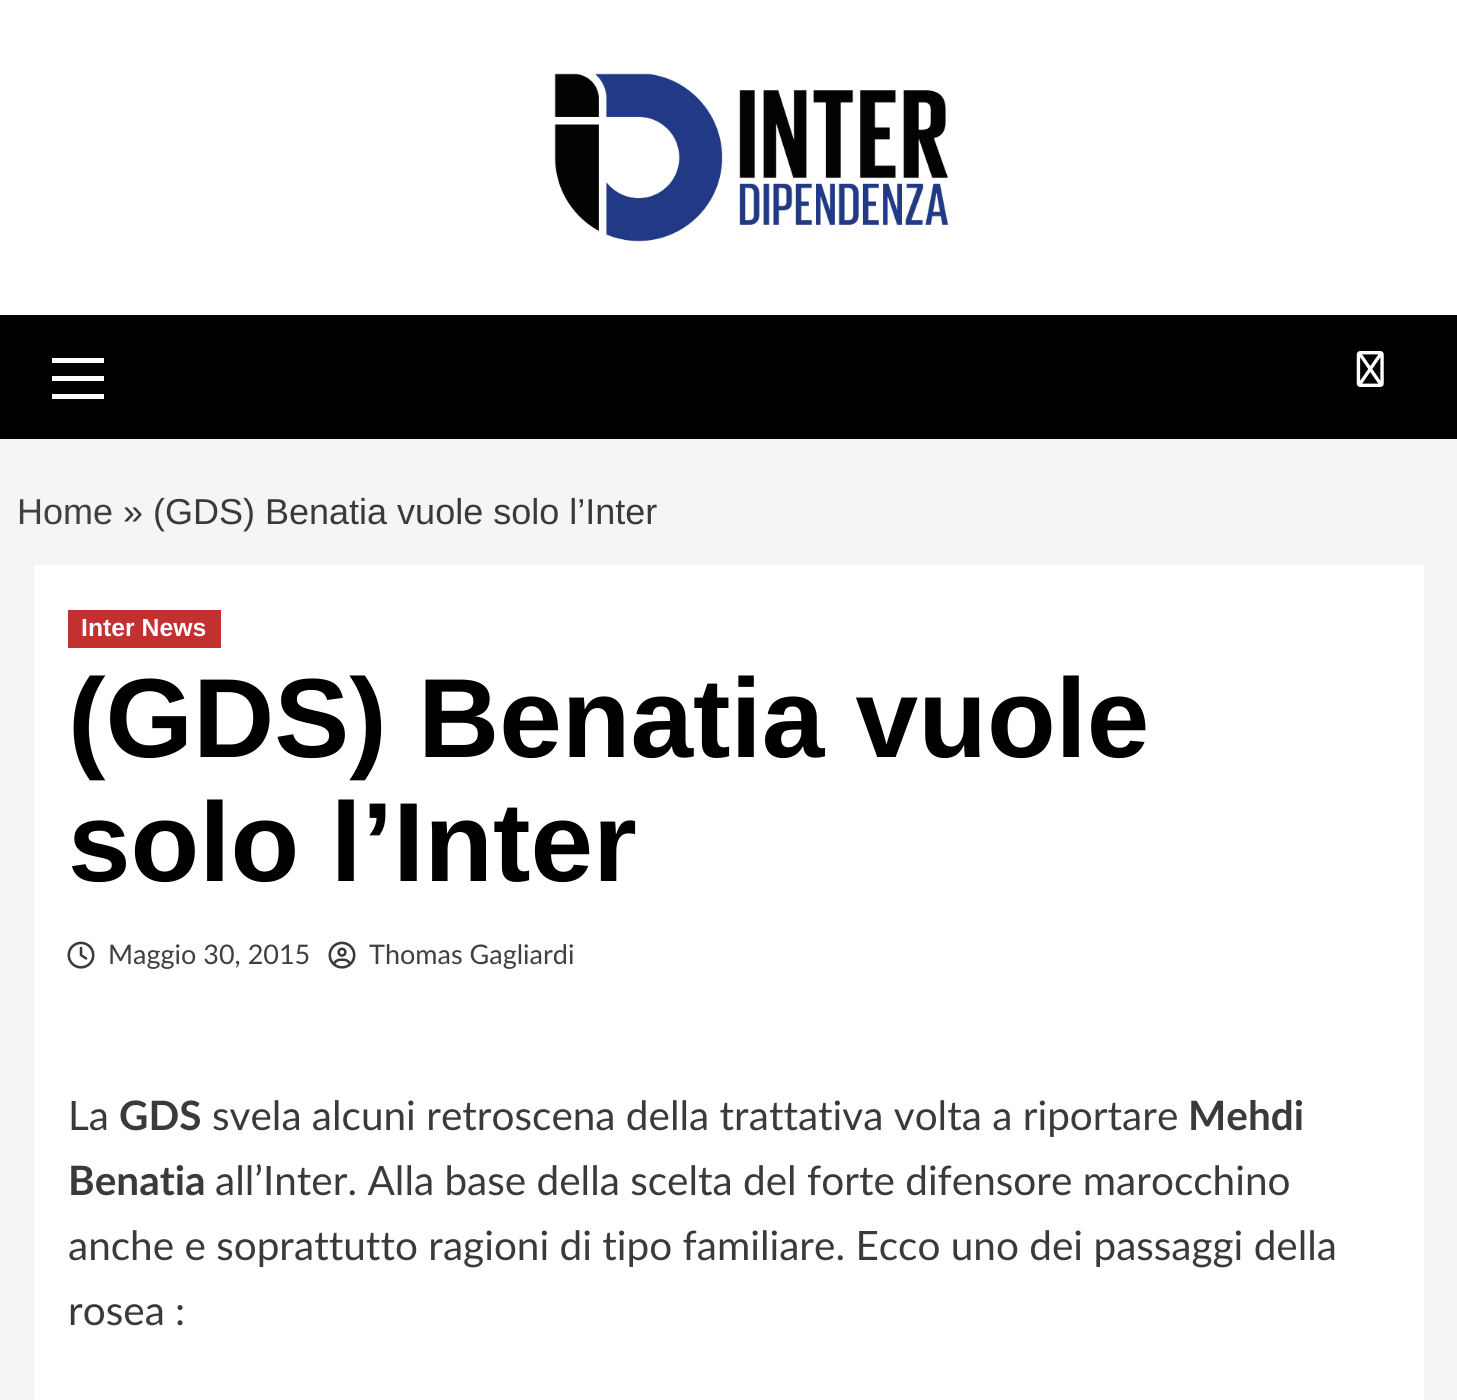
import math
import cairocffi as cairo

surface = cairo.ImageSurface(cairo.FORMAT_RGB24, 1457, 1400)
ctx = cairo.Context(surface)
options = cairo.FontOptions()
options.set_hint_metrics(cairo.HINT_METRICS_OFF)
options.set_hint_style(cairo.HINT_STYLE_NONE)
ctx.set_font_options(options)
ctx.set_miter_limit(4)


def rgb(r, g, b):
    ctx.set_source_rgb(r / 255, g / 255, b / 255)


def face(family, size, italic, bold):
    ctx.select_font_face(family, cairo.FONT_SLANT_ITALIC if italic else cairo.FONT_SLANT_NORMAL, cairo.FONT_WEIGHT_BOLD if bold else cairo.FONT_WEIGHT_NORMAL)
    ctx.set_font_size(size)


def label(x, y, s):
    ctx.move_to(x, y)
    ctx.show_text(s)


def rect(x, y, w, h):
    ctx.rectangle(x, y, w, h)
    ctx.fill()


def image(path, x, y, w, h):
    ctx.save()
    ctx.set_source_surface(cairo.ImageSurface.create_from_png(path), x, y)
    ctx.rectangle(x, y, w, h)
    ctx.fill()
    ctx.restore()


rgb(245, 245, 245)
ctx.paint()
rgb(255, 255, 255)
rect(0, 0, 1457, 315)
image('image0.png', 554, 73, 395, 169)
rgb(0, 0, 0)
rect(0, 315, 1457, 124)
rgb(255, 255, 255)
rect(52, 376, 52, 5)
rect(52, 358, 52, 5)
rect(52, 394, 52, 5)
image('image1.png', 1356, 351, 28, 36)
face('Liberation Sans', 36, 0, 0)
rgb(64, 64, 64)
label(17, 524, 'Home')
rgb(58, 58, 58)
label(123, 524, '» (GDS) Benatia vuole solo l’Inter')
rgb(255, 255, 255)
rect(34, 565, 1390, 835)
rgb(194, 48, 48)
rect(68, 610, 153, 38)
face('Liberation Sans', 24.75, 0, 1)
rgb(255, 255, 255)
label(81, 636, 'Inter News')
face('Liberation Sans', 112.5, 0, 1)
rgb(0, 0, 0)
label(68, 757, '(GDS) Benatia vuole')
label(68, 881, 'solo l’Inter')
image('image2.png', 67, 941, 28, 28)
face('Lato', 27, 0, 0)
rgb(64, 64, 64)
label(108, 964, 'Maggio 30, 2015')
image('image3.png', 328, 941, 28, 28)
label(369, 964, 'Thomas Gagliardi')
face('Lato', 40.5, 0, 0)
rgb(58, 58, 58)
label(68, 1130, 'La')
face('Lato', 40.5, 0, 1)
label(119, 1130, 'GDS')
face('Lato', 40.5, 0, 0)
label(212, 1130, 'svela alcuni retroscena della trattativa volta a riportare')
face('Lato', 40.5, 0, 1)
label(1188, 1130, 'Mehdi')
label(68, 1195, 'Benatia')
face('Lato', 40.5, 0, 0)
label(215, 1195, 'all’Inter. Alla base della scelta del forte difensore marocchino')
label(68, 1260, 'anche e soprattutto ragioni di tipo familiare. Ecco uno dei passaggi della')
label(68, 1325, 'rosea :')
surface.write_to_png('render.png')
